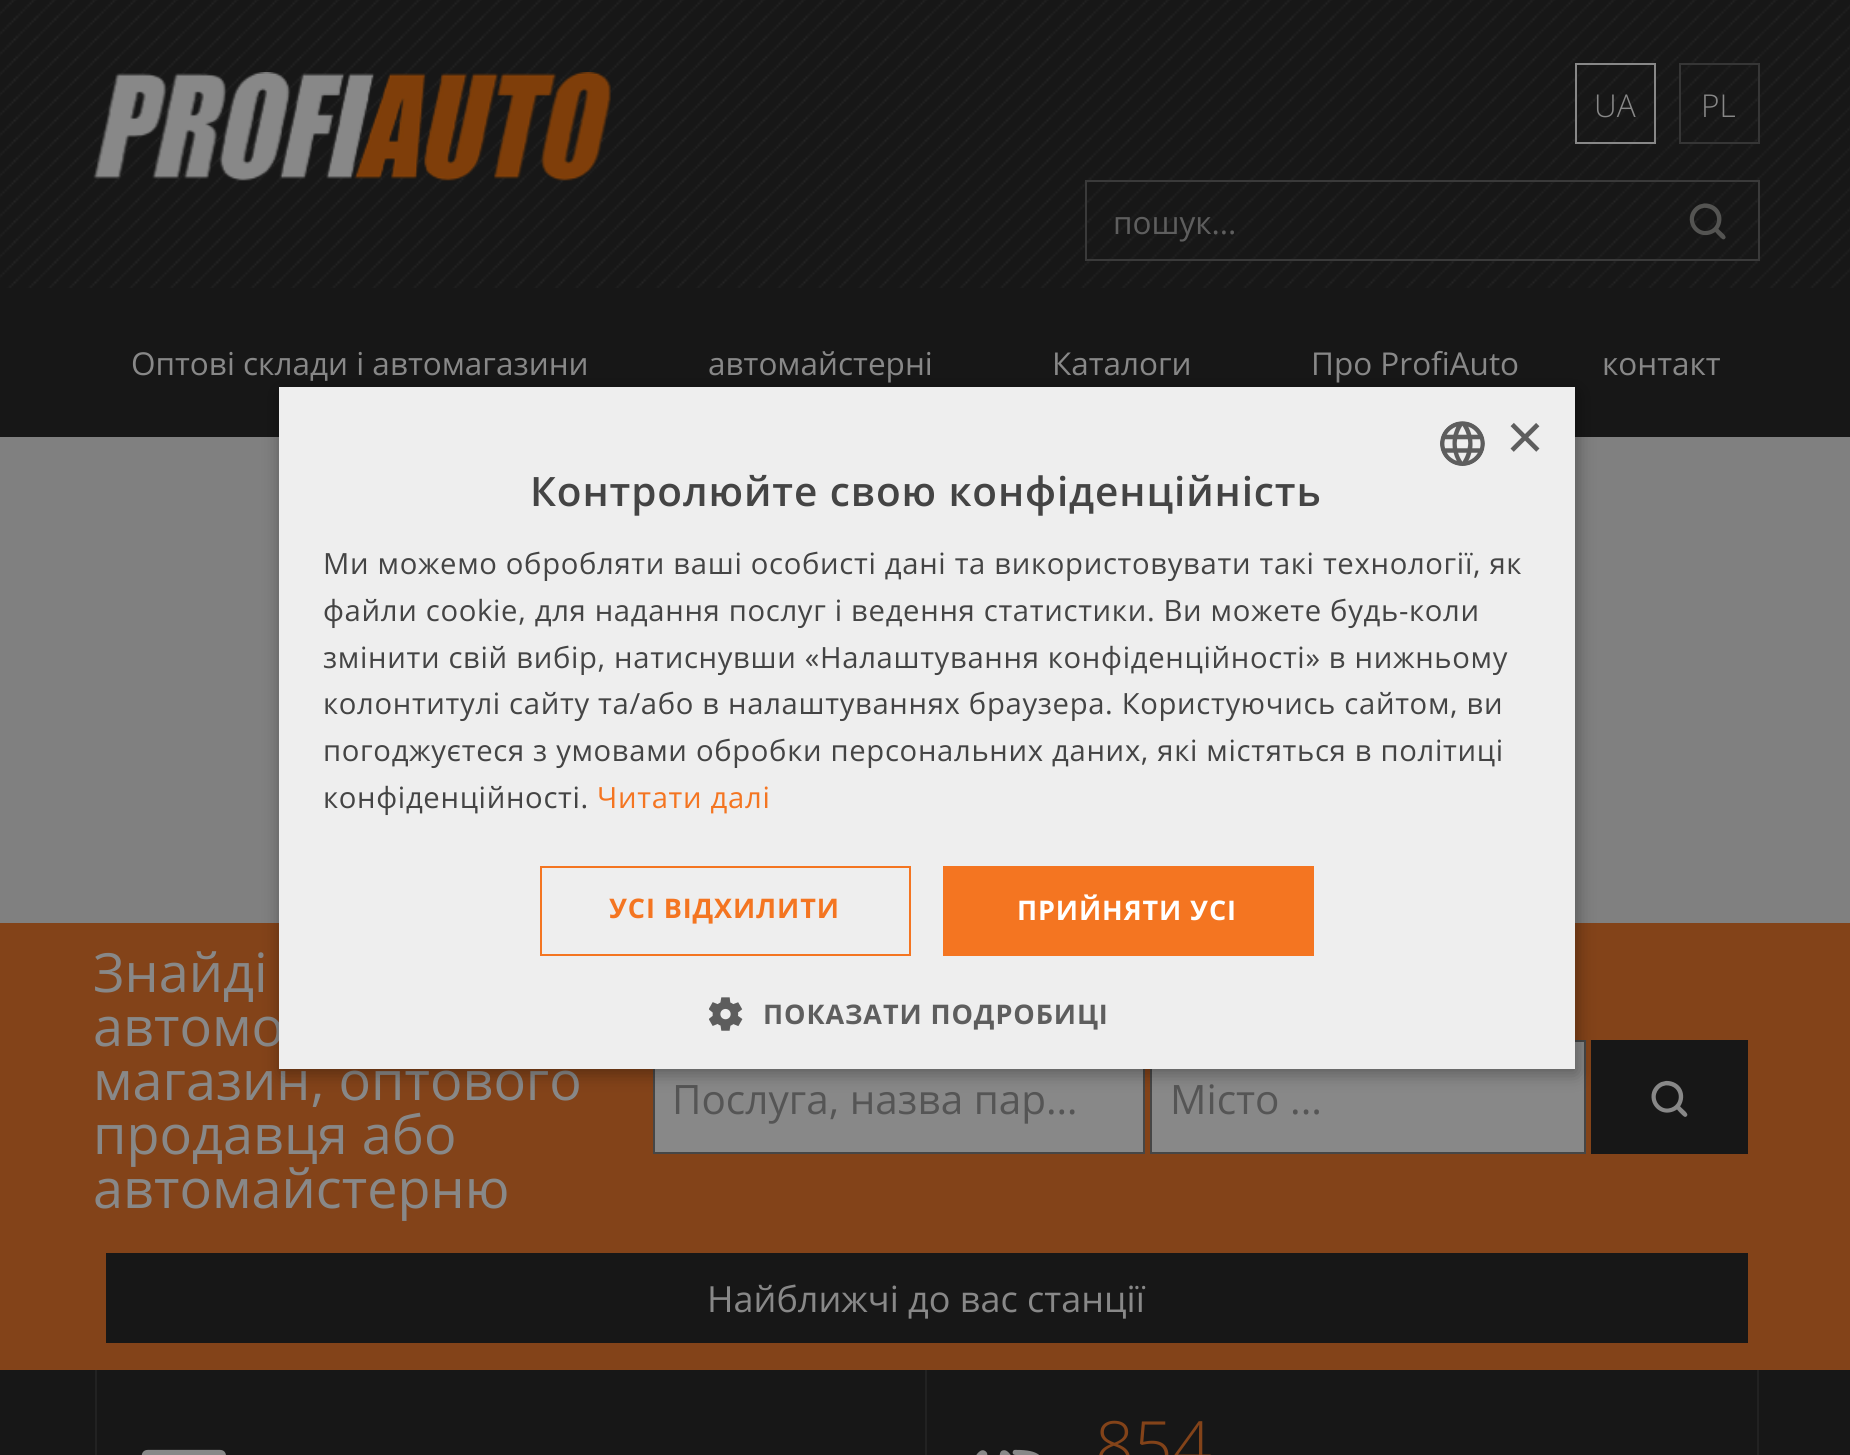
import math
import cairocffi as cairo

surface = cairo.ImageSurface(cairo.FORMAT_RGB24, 1850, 1455)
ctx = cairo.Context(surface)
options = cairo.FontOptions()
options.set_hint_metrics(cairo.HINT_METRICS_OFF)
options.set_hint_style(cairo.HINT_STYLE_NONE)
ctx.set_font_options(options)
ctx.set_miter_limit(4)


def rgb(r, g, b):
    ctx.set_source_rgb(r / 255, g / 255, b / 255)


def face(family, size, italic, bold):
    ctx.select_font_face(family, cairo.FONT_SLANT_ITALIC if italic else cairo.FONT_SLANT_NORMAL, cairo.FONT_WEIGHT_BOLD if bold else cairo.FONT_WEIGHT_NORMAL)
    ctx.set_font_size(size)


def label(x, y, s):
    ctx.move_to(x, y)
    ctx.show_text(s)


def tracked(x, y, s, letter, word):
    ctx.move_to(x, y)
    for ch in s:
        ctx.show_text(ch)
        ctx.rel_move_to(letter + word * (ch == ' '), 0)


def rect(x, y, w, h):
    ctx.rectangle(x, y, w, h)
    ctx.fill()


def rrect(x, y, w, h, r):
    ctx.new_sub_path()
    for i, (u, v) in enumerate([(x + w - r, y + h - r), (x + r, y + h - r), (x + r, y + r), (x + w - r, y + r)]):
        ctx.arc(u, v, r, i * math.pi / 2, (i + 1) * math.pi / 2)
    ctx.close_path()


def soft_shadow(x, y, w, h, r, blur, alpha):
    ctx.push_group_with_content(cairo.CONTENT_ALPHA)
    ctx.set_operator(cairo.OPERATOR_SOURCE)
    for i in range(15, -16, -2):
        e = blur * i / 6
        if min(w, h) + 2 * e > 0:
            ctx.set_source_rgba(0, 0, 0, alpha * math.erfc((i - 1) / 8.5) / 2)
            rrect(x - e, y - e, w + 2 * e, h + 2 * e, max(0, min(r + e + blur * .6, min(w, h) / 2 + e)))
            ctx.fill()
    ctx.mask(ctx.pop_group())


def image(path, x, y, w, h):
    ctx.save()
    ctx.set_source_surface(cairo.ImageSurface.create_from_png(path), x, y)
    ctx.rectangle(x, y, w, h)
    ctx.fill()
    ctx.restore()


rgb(23, 23, 23)
ctx.paint()
image('image0.png', 0, 0, 1850, 288)
image('image1.png', 93, 72, 518, 109)
ctx.rectangle(1576, 64, 79, 79)
rgb(136, 136, 136)
ctx.stroke()
face('Open Sans Light', 31.5, 0, 0)
label(1594, 117, 'UA')
ctx.rectangle(1680, 64, 79, 79)
rgb(54, 54, 54)
ctx.stroke()
rgb(136, 136, 136)
label(1701, 117, 'PL')
ctx.rectangle(1086, 181, 673, 79)
rgb(58, 58, 58)
ctx.stroke()
face('Open Sans', 31.5, 0, 0)
rgb(94, 94, 94)
label(1113, 234, 'пошук...')
image('image2.png', 1689, 203, 37, 37)
rgb(136, 136, 136)
label(131, 375, 'Оптові склади і автомагазини')
label(708, 375, 'автомайстерні')
label(1052, 375, 'Каталоги')
label(1311, 375, 'Про ProfiAuto')
label(1602, 375, 'контакт')
rgb(128, 128, 128)
rect(0, 437, 1850, 486)
rgb(131, 67, 25)
rect(0, 923, 1850, 447)
face('Open Sans', 54, 0, 0)
rgb(136, 136, 136)
label(93, 992, 'Знайді')
label(93, 1046, 'автомо')
label(93, 1100, 'магазин, оптового')
label(93, 1154, 'продавця або')
label(93, 1208, 'автомайстерню')
rect(655, 1069, 488, 83)
ctx.rectangle(654, 1041, 490, 112)
rgb(70, 70, 70)
ctx.stroke()
face('Open Sans', 40.5, 0, 0)
rgb(85, 85, 85)
label(672, 1114, 'Послуга, назва пар…')
rgb(136, 136, 136)
ctx.rectangle(1151, 1041, 434, 112)
ctx.fill_preserve()
rgb(70, 70, 70)
ctx.stroke()
rgb(85, 85, 85)
label(1170, 1114, 'Місто ...')
rgb(23, 23, 23)
rect(1591, 1040, 157, 114)
image('image3.png', 1651, 1080, 37, 37)
rect(106, 1253, 1642, 90)
face('Open Sans', 36, 0, 0)
rgb(136, 136, 136)
label(707, 1312, 'Найближчі до вас станції')
rgb(34, 34, 34)
rect(1757, 1370, 2, 85)
rect(95, 1370, 2, 85)
rect(925, 1370, 2, 85)
image('image4.png', 141, 1449, 85, 6)
image('image5.png', 976, 1449, 63, 6)
face('Open Sans Light', 68, 0, 0)
rgb(131, 67, 25)
label(1095, 1470, '854')
rgb(0, 0, 0)
soft_shadow(281, 392, 1296, 681, 0, 9, 0.35)
rgb(238, 238, 238)
rect(279, 387, 1296, 682)
image('image6.png', 1440, 421, 45, 45)
face('Liberation Sans', 65, 0, 0)
rgb(94, 94, 94)
label(1506, 459, '×')
face('Open Sans SemiBold', 40.5, 0, 0)
rgb(68, 68, 68)
tracked(530, 506, 'Контролюйте свою конфіденційність', 0.9, 0)
face('Open Sans', 29.25, 0, 0)
tracked(323, 574, 'Ми можемо обробляти ваші особисті дані та використовувати такі технології, як', 0.67, 0)
tracked(323, 621, 'файли cookie, для надання послуг і ведення статистики. Ви можете будь-коли', 0.67, 0)
tracked(323, 668, 'змінити свій вибір, натиснувши «Налаштування конфіденційності» в нижньому', 0.67, 0)
tracked(323, 714, 'колонтитулі сайту та/або в налаштуваннях браузера. Користуючись сайтом, ви', 0.67, 0)
tracked(323, 761, 'погоджуєтеся з умовами обробки персональних даних, які містяться в політиці', 0.67, 0)
tracked(323, 808, 'конфіденційності.', 0.67, 0)
rgb(244, 117, 33)
tracked(597, 808, 'Читати далі', 0.67, 0)
ctx.rectangle(541, 867, 369, 88)
ctx.stroke()
face('Open Sans', 27, 0, 1)
tracked(609, 918, 'УСІ ВІДХИЛИТИ', 0.9, 0)
rect(943, 866, 371, 90)
rgb(255, 255, 255)
tracked(1017, 920, 'ПРИЙНЯТИ УСІ', 0.9, 0)
image('image7.png', 709, 997, 34, 34)
rgb(94, 94, 94)
tracked(763, 1024, 'ПОКАЗАТИ ПОДРОБИЦІ', 0.9, 0)
surface.write_to_png('render.png')
